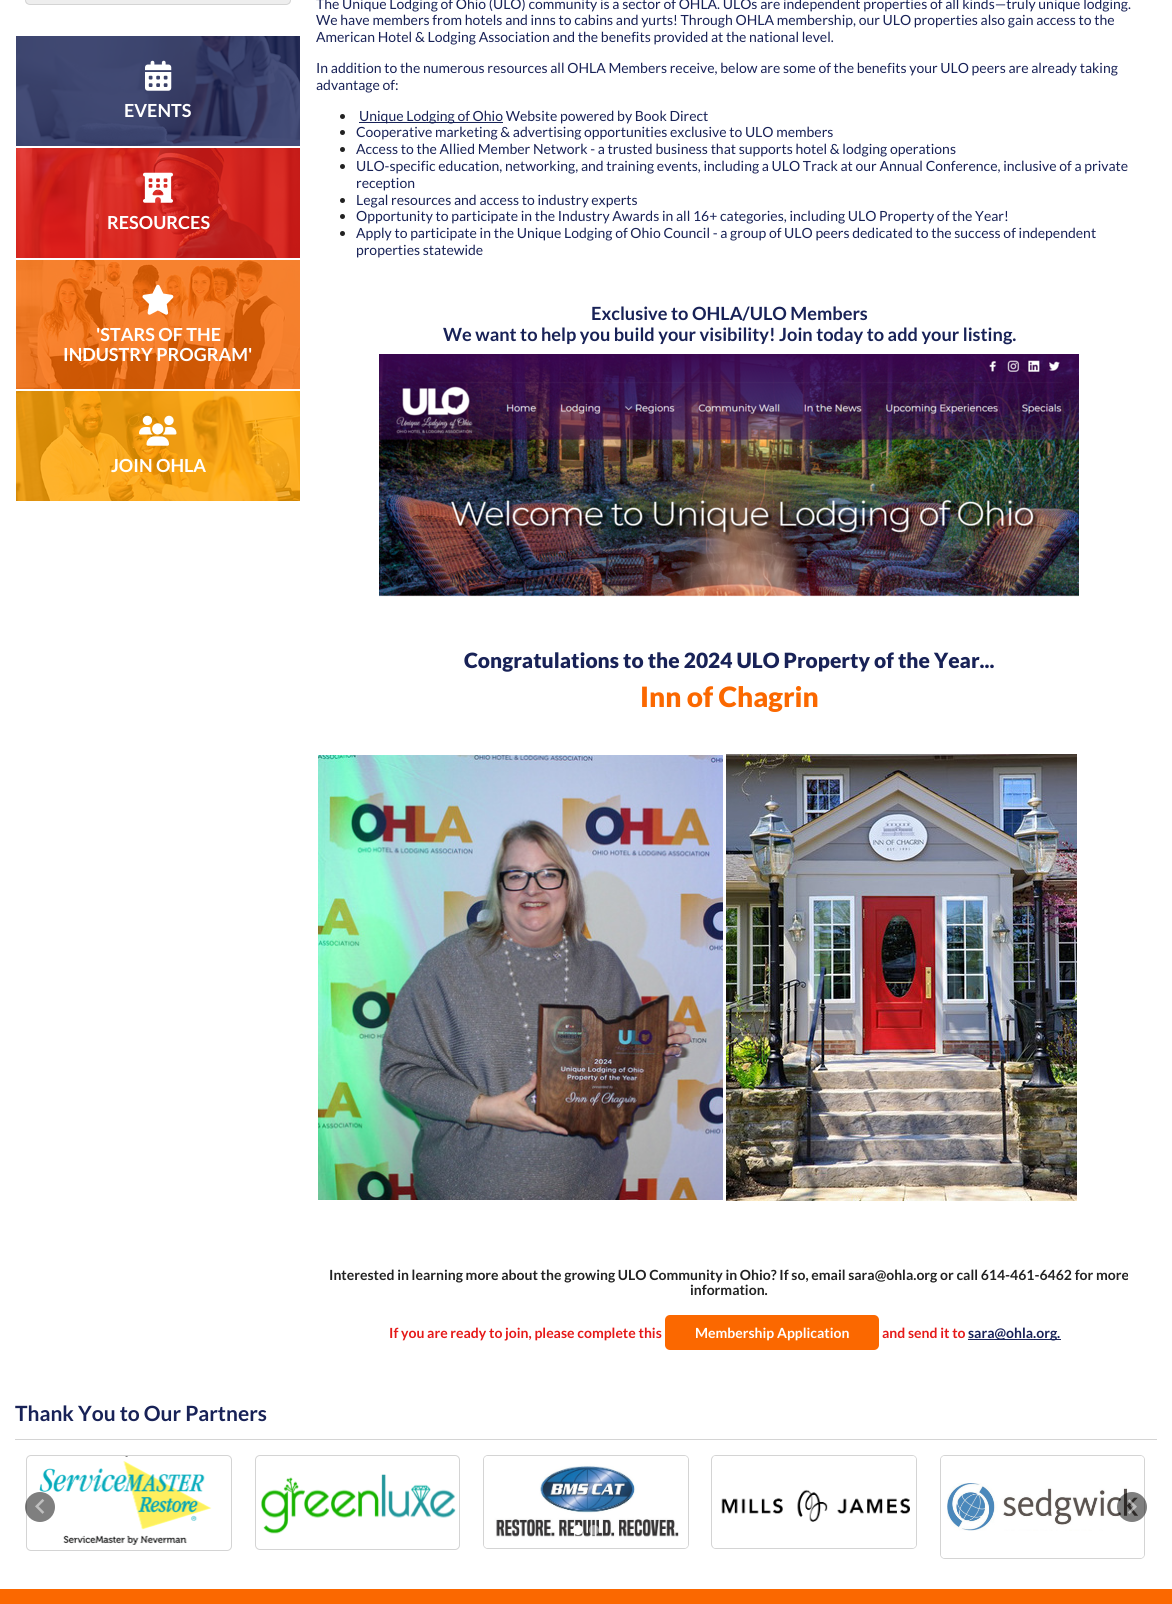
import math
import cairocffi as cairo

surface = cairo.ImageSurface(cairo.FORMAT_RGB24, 1172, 1604)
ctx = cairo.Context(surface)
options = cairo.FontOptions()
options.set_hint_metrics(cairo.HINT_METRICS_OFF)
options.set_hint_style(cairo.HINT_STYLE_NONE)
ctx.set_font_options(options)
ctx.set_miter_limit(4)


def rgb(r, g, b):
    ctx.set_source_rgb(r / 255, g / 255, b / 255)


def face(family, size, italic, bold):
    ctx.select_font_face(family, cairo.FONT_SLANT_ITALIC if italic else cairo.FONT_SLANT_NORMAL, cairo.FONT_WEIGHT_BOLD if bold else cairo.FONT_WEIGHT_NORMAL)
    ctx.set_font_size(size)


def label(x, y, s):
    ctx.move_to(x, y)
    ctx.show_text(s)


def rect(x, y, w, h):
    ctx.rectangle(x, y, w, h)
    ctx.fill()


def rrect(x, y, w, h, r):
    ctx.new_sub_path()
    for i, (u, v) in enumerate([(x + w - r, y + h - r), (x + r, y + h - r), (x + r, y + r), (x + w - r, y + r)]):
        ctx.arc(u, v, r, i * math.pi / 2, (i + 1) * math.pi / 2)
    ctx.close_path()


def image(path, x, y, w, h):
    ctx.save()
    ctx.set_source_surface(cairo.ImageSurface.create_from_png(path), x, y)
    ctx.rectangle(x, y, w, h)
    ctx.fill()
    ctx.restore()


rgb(255, 255, 255)
ctx.paint()
ctx.save()
ctx.new_path()
ctx.move_to(25, -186)
ctx.line_to(291, -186)
ctx.line_to(291, 0)
ctx.curve_to(291, 3, 289, 5, 286, 5)
ctx.line_to(30, 5)
ctx.curve_to(27, 5, 25, 3, 25, 0)
ctx.close_path()
ctx.clip()
gradient = cairo.LinearGradient(158, -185, 158, 4)
gradient.add_color_stop_rgba(0, 1, 1, 1, 1)
gradient.add_color_stop_rgba(1, 0.933, 0.933, 0.933, 1)
ctx.set_source(gradient)
rect(25, 0, 266, 4)
ctx.restore()
ctx.new_path()
ctx.move_to(25.5, -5.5)
ctx.line_to(290.5, -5.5)
ctx.line_to(290.5, 0)
ctx.curve_to(290.5, 2.5, 288.5, 4.5, 286, 4.5)
ctx.line_to(30, 4.5)
ctx.curve_to(27.5, 4.5, 25.5, 2.5, 25.5, 0)
ctx.close_path()
rgb(212, 212, 212)
ctx.set_line_width(1)
ctx.stroke()
image('image0.png', 16, 36, 284, 110)
image('image1.png', 145, 60, 27, 31)
face('Lato', 18, 0, 1)
rgb(255, 255, 255)
label(124, 117, 'EVENTS')
image('image2.png', 16, 148, 284, 110)
image('image3.png', 143, 172, 30, 31)
label(107, 229, 'RESOURCES')
image('image4.png', 16, 260, 284, 129)
image('image5.png', 142, 284, 32, 31)
label(96, 341, '\'STARS OF THE')
label(63, 361, 'INDUSTRY PROGRAM\'')
image('image6.png', 16, 391, 284, 110)
image('image7.png', 139, 415, 38, 31)
label(111, 472, 'JOIN OHLA')
face('Lato', 14, 0, 0)
rgb(24, 34, 87)
label(316, 9, 'The Unique Lodging of Ohio (ULO) community is a sector of OHLA. ULOs are independent properties of all kinds—truly unique lodging.')
label(316, 25, 'We have members from hotels and inns to cabins and yurts! Through OHLA membership, our ULO properties also gain access to the')
label(316, 42, 'American Hotel & Lodging Association and the benefits provided at the national level.')
label(316, 73, 'In addition to the numerous resources all OHLA Members receive, below are some of the benefits your ULO peers are already taking')
label(316, 90, 'advantage of:')
rgb(34, 34, 34)
ctx.new_path()
ctx.arc(342.5, 116.5, 2.5, 0, 2 * math.pi)
ctx.fill()
rgb(24, 34, 87)
rect(359, 122, 144, 1)
label(359, 121, 'Unique Lodging of Ohio Website powered by Book Direct')
rgb(34, 34, 34)
ctx.new_path()
ctx.arc(342.5, 132.5, 2.5, 0, 2 * math.pi)
ctx.fill()
rgb(24, 34, 87)
label(356, 137, 'Cooperative marketing & advertising opportunities exclusive to ULO members')
rgb(34, 34, 34)
ctx.new_path()
ctx.arc(342.5, 149.5, 2.5, 0, 2 * math.pi)
ctx.fill()
rgb(24, 34, 87)
label(356, 154, 'Access to the Allied Member Network - a trusted business that supports hotel & lodging operations')
rgb(34, 34, 34)
ctx.new_path()
ctx.arc(342.5, 166.5, 2.5, 0, 2 * math.pi)
ctx.fill()
rgb(24, 34, 87)
label(356, 171, 'ULO-specific education, networking, and training events, including a ULO Track at our Annual Conference, inclusive of a private')
label(356, 188, 'reception')
rgb(34, 34, 34)
ctx.new_path()
ctx.arc(342.5, 200.5, 2.5, 0, 2 * math.pi)
ctx.fill()
rgb(24, 34, 87)
label(356, 205, 'Legal resources and access to industry experts')
rgb(34, 34, 34)
ctx.new_path()
ctx.arc(342.5, 216.5, 2.5, 0, 2 * math.pi)
ctx.fill()
rgb(24, 34, 87)
label(356, 221, 'Opportunity to participate in the Industry Awards in all 16+ categories, including ULO Property of the Year!')
rgb(34, 34, 34)
ctx.new_path()
ctx.arc(342.5, 233.5, 2.5, 0, 2 * math.pi)
ctx.fill()
rgb(24, 34, 87)
label(356, 238, 'Apply to participate in the Unique Lodging of Ohio Council - a group of ULO peers dedicated to the success of independent')
label(356, 255, 'properties statewide')
face('Lato', 18.2, 0, 1)
label(591, 320, 'Exclusive to OHLA/ULO Members')
label(443, 341, 'We want to help you build your visibility! Join today to add your listing.')
image('image8.png', 379, 354, 700, 243)
face('Lato Black', 21, 0, 0)
label(464, 668, 'Congratulations to the 2024 ULO Property of the Year...')
face('Lato Black', 28, 0, 0)
rgb(251, 104, 0)
label(640, 707, 'Inn of Chagrin')
image('image9.png', 318, 755, 405, 445)
image('image10.png', 726, 754, 351, 447)
face('Lato', 14, 0, 1)
rgb(34, 34, 34)
label(329, 1280, 'Interested in learning more about the growing ULO Community in Ohio? If so, email sara@ohla.org or call 614-461-6462 for more')
label(690, 1295, 'information.')
rgb(229, 25, 24)
label(389, 1338, 'If you are ready to join, please complete this')
rgb(251, 104, 0)
rrect(665, 1315, 214, 35, 5)
ctx.fill()
rgb(255, 255, 255)
label(695, 1338, 'Membership Application')
rgb(229, 25, 24)
label(882, 1338, 'and send it to')
rgb(24, 34, 87)
rect(968, 1339, 93, 1)
label(968, 1338, 'sara@ohla.org.')
face('Lato', 21, 0, 1)
label(15, 1421, 'Thank You to Our Partners')
rgb(212, 212, 212)
rect(15, 1439, 1142, 1)
rrect(26.5, 1455.5, 205, 95, 4.5)
ctx.stroke()
image('image11.png', 39, 1456, 173, 89)
rrect(255.5, 1455.5, 204, 94, 4.5)
ctx.stroke()
image('image12.png', 261, 1474, 195, 60)
rrect(483.5, 1455.5, 205, 93, 4.5)
ctx.stroke()
image('image13.png', 484, 1456, 204, 92)
rrect(711.5, 1455.5, 205, 93, 4.5)
ctx.stroke()
image('image14.png', 713, 1456, 203, 92)
rrect(940.5, 1455.5, 204, 103, 4.5)
ctx.stroke()
image('image15.png', 941, 1456, 203, 102)
ctx.set_source_rgba(0, 0, 0, 0.5)
ctx.arc(40, 1507, 15, 0, 2 * math.pi)
ctx.fill()
image('image16.png', 35, 1499, 10, 15)
ctx.arc(1132, 1507, 15, 0, 2 * math.pi)
ctx.fill()
image('image17.png', 1127, 1499, 10, 15)
rgb(255, 255, 255)
ctx.arc(578, 1530, 5, 0, 2 * math.pi)
ctx.fill()
ctx.set_source_rgba(1, 1, 1, 0.5)
ctx.arc(594, 1530, 5, 0, 2 * math.pi)
ctx.fill()
rgb(251, 104, 0)
rect(0, 1589, 1172, 15)
surface.write_to_png('render.png')
